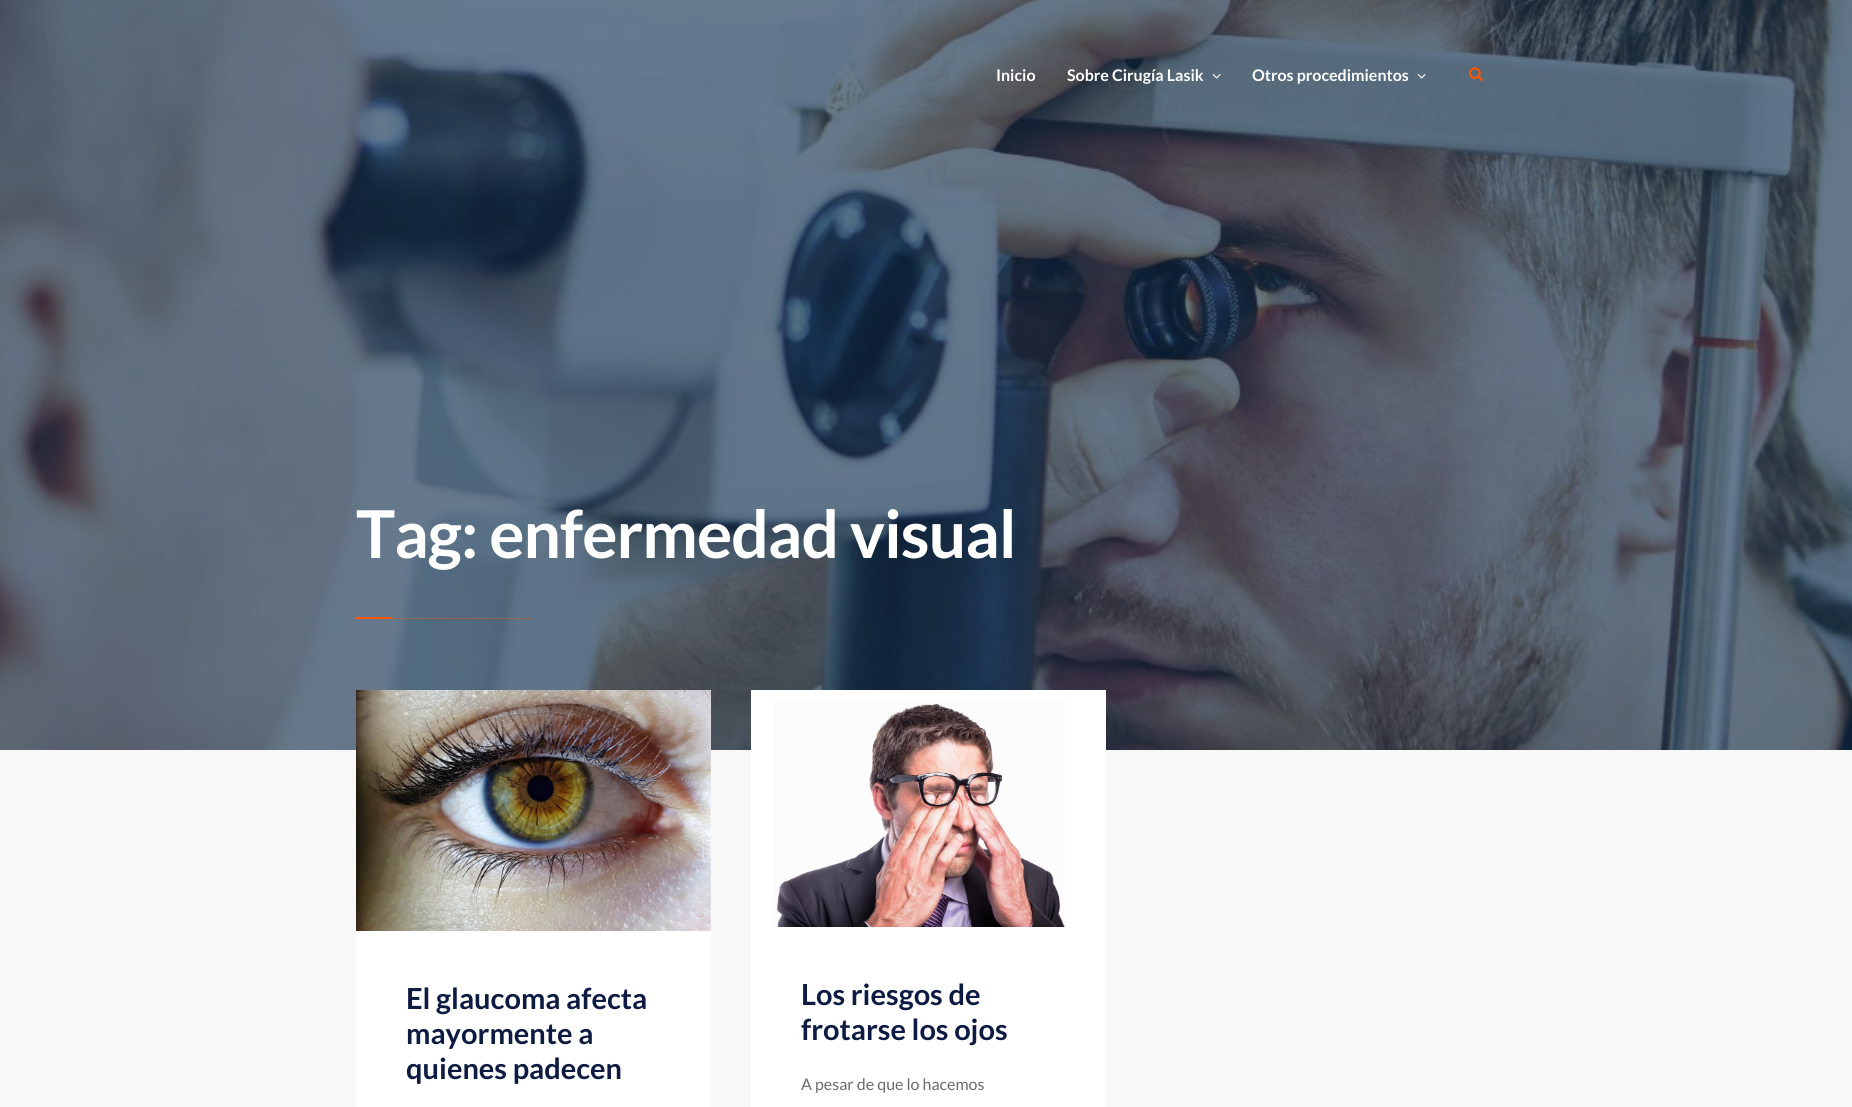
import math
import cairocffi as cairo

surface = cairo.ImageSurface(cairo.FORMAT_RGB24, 1852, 1107)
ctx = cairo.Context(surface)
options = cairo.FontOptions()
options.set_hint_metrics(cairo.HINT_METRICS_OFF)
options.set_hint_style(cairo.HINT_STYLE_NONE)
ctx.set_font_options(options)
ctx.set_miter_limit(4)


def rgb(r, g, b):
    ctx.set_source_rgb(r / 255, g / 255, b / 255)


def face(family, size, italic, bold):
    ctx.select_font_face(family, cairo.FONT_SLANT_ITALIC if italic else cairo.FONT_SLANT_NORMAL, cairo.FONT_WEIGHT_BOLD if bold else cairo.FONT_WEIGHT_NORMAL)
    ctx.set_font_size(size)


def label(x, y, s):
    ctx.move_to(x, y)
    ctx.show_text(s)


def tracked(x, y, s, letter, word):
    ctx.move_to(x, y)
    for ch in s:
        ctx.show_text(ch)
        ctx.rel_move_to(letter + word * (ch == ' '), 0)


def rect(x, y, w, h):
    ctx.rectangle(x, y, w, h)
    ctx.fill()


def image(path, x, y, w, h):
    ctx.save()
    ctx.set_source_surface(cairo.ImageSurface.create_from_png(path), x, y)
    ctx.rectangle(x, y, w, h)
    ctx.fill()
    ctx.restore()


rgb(248, 248, 248)
ctx.paint()
image('image3.png', 0, 0, 1852, 750)
image('image4.png', 0, 0, 1852, 750)
face('Lato', 16, 0, 1)
rgb(255, 255, 255)
label(996, 81, 'Inicio')
label(1067, 81, 'Sobre Cirugía Lasik')
image('image0.png', 1212, 74, 9, 5)
label(1252, 81, 'Otros procedimientos')
image('image1.png', 1417, 74, 9, 5)
image('image2.png', 1469, 67, 14, 15)
face('Lato', 66, 0, 1)
tracked(356, 558, 'Tag: enfermedad visual', -1, 0)
rgb(255, 87, 0)
rect(356, 617, 35, 2)
ctx.set_source_rgba(1, 0.341, 0, 0.4)
rect(391, 618, 141, 1)
rgb(255, 255, 255)
rect(356, 931, 355, 176)
image('image5.png', 356, 690, 355, 241)
face('Lato', 29, 0, 1)
rgb(13, 27, 67)
label(406, 1009, 'El glaucoma afecta')
label(406, 1044, 'mayormente a')
label(406, 1079, 'quienes padecen')
rgb(255, 255, 255)
rect(751, 690, 355, 417)
image('image6.png', 774, 701, 291, 226)
rgb(13, 27, 67)
label(801, 1005, 'Los riesgos de')
label(801, 1040, 'frotarse los ojos')
face('Lato', 16, 0, 0)
rgb(107, 107, 107)
label(801, 1090, 'A pesar de que lo hacemos')
surface.write_to_png('render.png')
